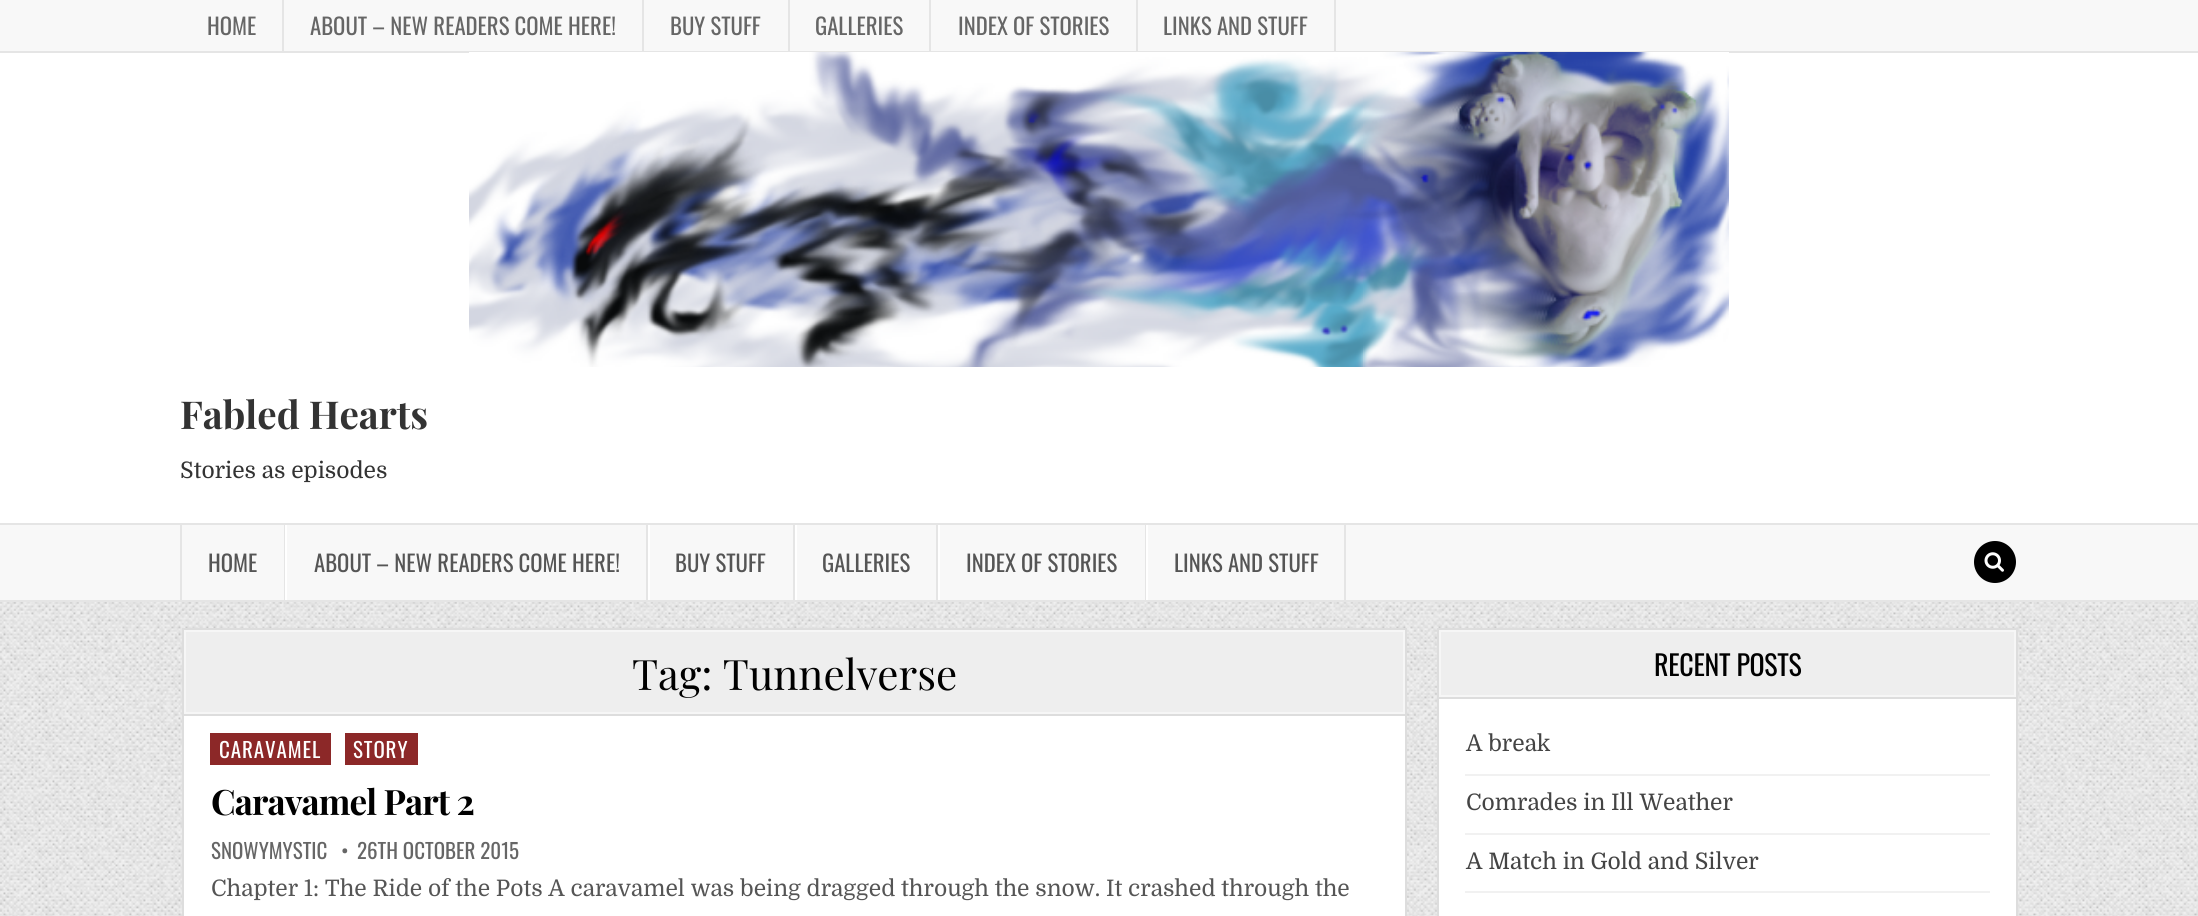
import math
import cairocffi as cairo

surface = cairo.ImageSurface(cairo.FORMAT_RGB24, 2198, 916)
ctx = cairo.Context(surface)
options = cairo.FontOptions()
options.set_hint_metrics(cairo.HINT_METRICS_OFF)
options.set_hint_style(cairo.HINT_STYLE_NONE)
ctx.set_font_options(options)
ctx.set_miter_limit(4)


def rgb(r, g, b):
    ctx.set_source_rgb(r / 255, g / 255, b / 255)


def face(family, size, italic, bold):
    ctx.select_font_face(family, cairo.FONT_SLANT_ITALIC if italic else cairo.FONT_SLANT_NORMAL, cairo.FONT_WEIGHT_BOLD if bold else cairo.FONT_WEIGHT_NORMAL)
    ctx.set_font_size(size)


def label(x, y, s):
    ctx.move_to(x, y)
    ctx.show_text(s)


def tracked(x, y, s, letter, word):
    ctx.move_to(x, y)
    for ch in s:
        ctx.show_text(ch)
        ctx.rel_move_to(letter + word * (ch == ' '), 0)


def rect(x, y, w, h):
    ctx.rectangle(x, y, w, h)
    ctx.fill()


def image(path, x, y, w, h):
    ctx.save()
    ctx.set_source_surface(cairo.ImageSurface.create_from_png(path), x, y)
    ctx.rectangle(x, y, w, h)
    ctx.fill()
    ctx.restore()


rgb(255, 255, 255)
ctx.paint()
image('image0.png', 0, 602, 2198, 314)
rgb(248, 248, 248)
rect(0, 0, 2198, 51)
rgb(229, 229, 229)
rect(0, 51, 2198, 2)
rect(282, 0, 2, 51)
face('Oswald', 22.75, 0, 0)
rgb(102, 102, 102)
label(207, 35, 'HOME')
rgb(229, 229, 229)
rect(642, 0, 2, 51)
rgb(102, 102, 102)
label(310, 35, 'ABOUT – NEW READERS COME HERE!')
rgb(229, 229, 229)
rect(788, 0, 2, 51)
rgb(102, 102, 102)
label(670, 35, 'BUY STUFF')
rgb(229, 229, 229)
rect(929, 0, 2, 51)
rgb(102, 102, 102)
label(815, 35, 'GALLERIES')
rgb(229, 229, 229)
rect(1136, 0, 2, 51)
rgb(102, 102, 102)
label(958, 35, 'INDEX OF STORIES')
rgb(229, 229, 229)
rect(1334, 0, 2, 51)
rgb(102, 102, 102)
label(1163, 35, 'LINKS AND STUFF')
image('image1.png', 469, 52, 1260, 315)
face('Playfair Display', 38.5, 0, 1)
rgb(51, 51, 51)
label(180, 429, 'Fabled Hearts')
face('Domine', 22.75, 0, 0)
label(180, 478, 'Stories as episodes')
rgb(248, 248, 248)
rect(0, 525, 2198, 75)
rgb(229, 229, 229)
rect(0, 523, 2198, 2)
rect(0, 600, 2198, 2)
rect(284, 525, 1, 75)
rect(180, 525, 2, 75)
face('Oswald', 22.75, 0, 0)
rgb(85, 85, 85)
label(208, 572, 'HOME')
rgb(229, 229, 229)
rect(646, 525, 2, 75)
rgb(255, 255, 255)
rect(285, 525, 2, 75)
rgb(85, 85, 85)
label(314, 572, 'ABOUT – NEW READERS COME HERE!')
rgb(229, 229, 229)
rect(793, 525, 2, 75)
rgb(255, 255, 255)
rect(648, 525, 2, 75)
rgb(85, 85, 85)
label(675, 572, 'BUY STUFF')
rgb(229, 229, 229)
rect(936, 525, 2, 75)
rgb(255, 255, 255)
rect(795, 525, 2, 75)
rgb(85, 85, 85)
label(822, 572, 'GALLERIES')
rgb(229, 229, 229)
rect(1145, 525, 1, 75)
rgb(255, 255, 255)
rect(938, 525, 2, 75)
rgb(85, 85, 85)
label(966, 572, 'INDEX OF STORIES')
rgb(229, 229, 229)
rect(1344, 525, 2, 75)
rgb(255, 255, 255)
rect(1146, 525, 2, 75)
rgb(85, 85, 85)
label(1174, 572, 'LINKS AND STUFF')
rgb(0, 0, 0)
ctx.new_path()
ctx.arc(1995, 562, 21, 0, 2 * math.pi)
ctx.fill()
image('image2.png', 1984, 552, 20, 20)
rgb(255, 255, 255)
rect(184, 716, 1221, 200)
ctx.rectangle(183, 629, 1223, 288)
rgb(221, 221, 221)
ctx.stroke()
rect(184, 714, 1221, 2)
rgb(238, 238, 238)
ctx.rectangle(185, 631, 1219, 82)
ctx.fill_preserve()
rgb(246, 246, 246)
ctx.stroke()
face('Playfair Display', 42, 0, 0)
rgb(0, 0, 0)
label(632, 690, 'Tag: Tunnelverse')
rgb(140, 40, 40)
rect(210, 733, 121, 32)
face('Oswald', 21, 0, 0)
rgb(255, 255, 255)
tracked(219, 758, 'CARAVAMEL', 0.9, 0)
rgb(140, 40, 40)
rect(345, 733, 73, 32)
rgb(255, 255, 255)
tracked(353, 758, 'STORY', 0.9, 0)
face('Playfair Display', 35, 0, 1)
rgb(0, 0, 0)
tracked(211, 815, 'Caravamel Part 2', -0.9, 0)
face('Oswald', 21, 0, 0)
rgb(102, 102, 102)
label(211, 859, 'SNOWYMYSTIC')
label(341, 859, '•')
label(357, 859, '26TH OCTOBER 2015')
face('Domine', 22.75, 0, 0)
rgb(85, 85, 85)
label(211, 896, 'Chapter 1: The Ride of the Pots A caravamel was being dragged through the snow. It crashed through the')
rgb(255, 255, 255)
rect(1439, 699, 577, 217)
ctx.rectangle(1438, 629, 579, 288)
rgb(221, 221, 221)
ctx.stroke()
rect(1439, 697, 577, 2)
rgb(238, 238, 238)
ctx.rectangle(1440, 631, 575, 65)
ctx.fill_preserve()
rgb(246, 246, 246)
ctx.stroke()
face('Oswald', 28, 0, 0)
rgb(0, 0, 0)
tracked(1654, 676, 'RECENT POSTS', -0.3, 0)
rgb(241, 241, 241)
rect(1465, 774, 525, 2)
face('Domine', 22.75, 0, 0)
rgb(68, 68, 68)
label(1466, 751, 'A break')
rgb(241, 241, 241)
rect(1465, 833, 525, 2)
rgb(68, 68, 68)
label(1466, 810, 'Comrades in Ill Weather')
rgb(241, 241, 241)
rect(1465, 891, 525, 2)
rgb(68, 68, 68)
label(1466, 869, 'A Match in Gold and Silver')
surface.write_to_png('render.png')
